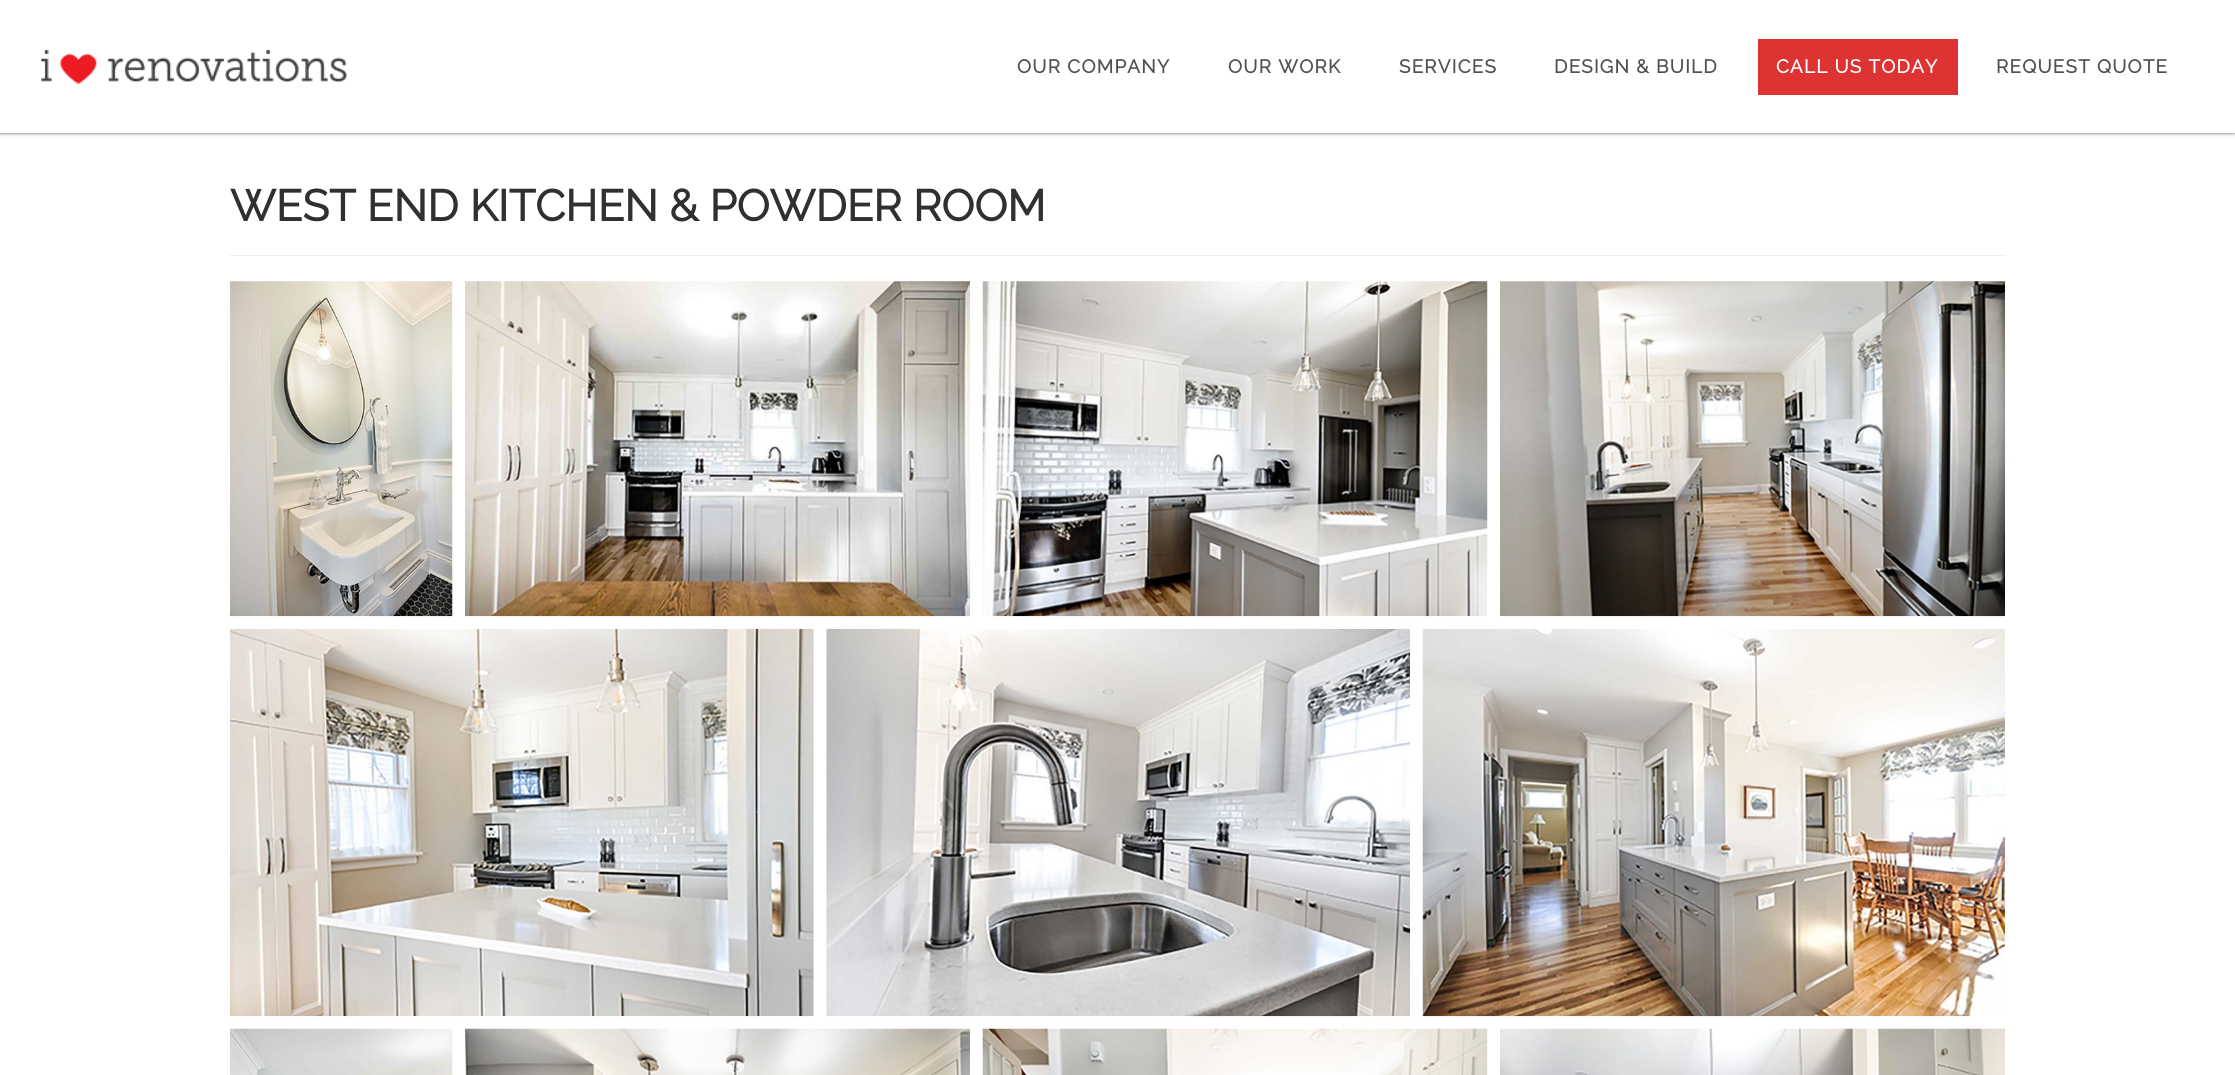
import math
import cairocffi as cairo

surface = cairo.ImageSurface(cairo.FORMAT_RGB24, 2235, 1075)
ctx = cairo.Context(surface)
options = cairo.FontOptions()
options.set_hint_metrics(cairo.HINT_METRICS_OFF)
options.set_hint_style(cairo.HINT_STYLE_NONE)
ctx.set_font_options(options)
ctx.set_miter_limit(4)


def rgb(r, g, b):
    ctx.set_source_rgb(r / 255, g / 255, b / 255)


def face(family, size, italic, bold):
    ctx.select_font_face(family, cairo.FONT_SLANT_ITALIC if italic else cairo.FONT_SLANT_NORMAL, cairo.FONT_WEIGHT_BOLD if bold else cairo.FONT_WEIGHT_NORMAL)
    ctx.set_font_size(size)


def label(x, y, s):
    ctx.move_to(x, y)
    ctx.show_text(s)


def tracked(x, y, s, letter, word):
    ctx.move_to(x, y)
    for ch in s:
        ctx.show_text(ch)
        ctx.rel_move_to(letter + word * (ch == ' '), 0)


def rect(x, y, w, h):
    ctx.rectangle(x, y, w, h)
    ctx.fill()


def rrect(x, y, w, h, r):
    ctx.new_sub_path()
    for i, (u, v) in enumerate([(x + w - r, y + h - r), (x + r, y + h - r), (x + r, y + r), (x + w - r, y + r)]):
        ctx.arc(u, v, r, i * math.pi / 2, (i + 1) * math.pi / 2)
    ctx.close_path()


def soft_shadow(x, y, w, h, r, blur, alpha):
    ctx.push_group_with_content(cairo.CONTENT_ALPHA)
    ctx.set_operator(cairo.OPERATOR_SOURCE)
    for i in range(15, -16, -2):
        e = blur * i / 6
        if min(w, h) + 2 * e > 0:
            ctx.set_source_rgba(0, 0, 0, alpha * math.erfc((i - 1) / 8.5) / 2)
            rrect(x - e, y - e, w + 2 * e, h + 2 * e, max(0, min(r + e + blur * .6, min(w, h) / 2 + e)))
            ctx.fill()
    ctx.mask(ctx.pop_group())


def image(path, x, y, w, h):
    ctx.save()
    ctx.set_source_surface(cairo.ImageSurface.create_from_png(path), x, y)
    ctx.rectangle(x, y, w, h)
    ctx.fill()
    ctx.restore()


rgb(255, 255, 255)
ctx.paint()
ctx.save()
ctx.set_fill_rule(cairo.FILL_RULE_EVEN_ODD)
ctx.new_path()
ctx.move_to(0, 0)
ctx.line_to(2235, 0)
ctx.line_to(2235, 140)
ctx.line_to(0, 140)
ctx.close_path()
ctx.move_to(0, 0)
ctx.line_to(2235, 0)
ctx.line_to(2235, 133)
ctx.line_to(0, 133)
ctx.close_path()
ctx.clip()
rgb(96, 96, 96)
soft_shadow(0, 0, 2235, 133, 0, 2, 1)
ctx.restore()
ctx.set_source_rgba(1, 1, 1, 0.72)
rect(0, 132, 2235, 1)
image('image0.png', 41, 49, 306, 35)
face('Raleway', 18.75, 0, 1)
rgb(81, 81, 81)
tracked(1017, 73, 'OUR COMPANY', 1.25, 0)
tracked(1228, 73, 'OUR WORK', 1.25, 0)
tracked(1399, 73, 'SERVICES', 1.25, 0)
tracked(1554, 73, 'DESIGN & BUILD', 1.25, 0)
rgb(221, 51, 51)
rect(1758, 39, 200, 56)
rgb(255, 255, 255)
tracked(1776, 73, 'CALL US TODAY', 1.25, 0)
rgb(81, 81, 81)
tracked(1996, 73, 'REQUEST QUOTE', 1.25, 0)
rgb(238, 238, 238)
rect(230, 255, 1775, 1)
face('Raleway', 43.75, 0, 1)
rgb(48, 48, 48)
label(230, 221, 'WEST END KITCHEN & POWDER ROOM')
image('image1.png', 230, 281, 223, 336)
image('image2.png', 465, 281, 505, 336)
image('image3.png', 982, 281, 506, 336)
image('image4.png', 1500, 281, 505, 336)
image('image5.png', 230, 628, 584, 389)
image('image6.png', 826, 628, 584, 389)
image('image7.png', 1422, 629, 583, 388)
image('image8.png', 230, 1028, 223, 47)
image('image9.png', 465, 1028, 505, 47)
image('image10.png', 982, 1028, 506, 47)
image('image11.png', 1500, 1028, 505, 47)
surface.write_to_png('render.png')
